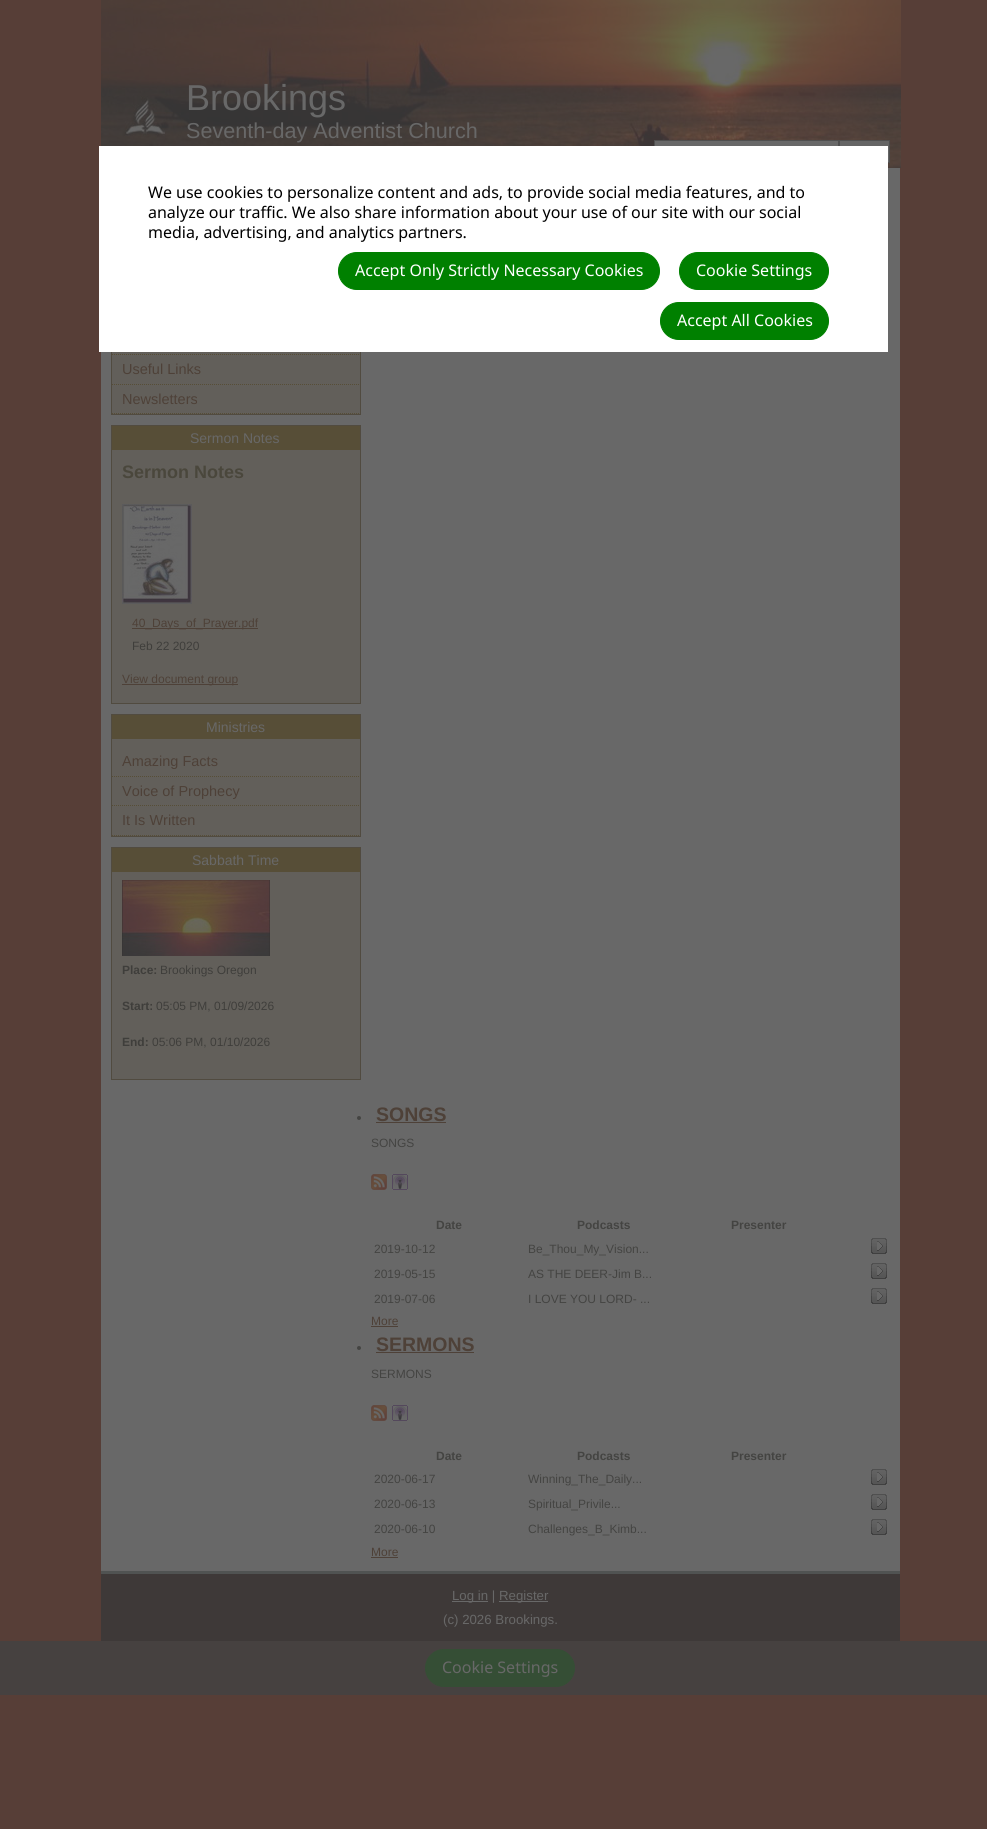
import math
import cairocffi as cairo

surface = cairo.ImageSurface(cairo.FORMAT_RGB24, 987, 1829)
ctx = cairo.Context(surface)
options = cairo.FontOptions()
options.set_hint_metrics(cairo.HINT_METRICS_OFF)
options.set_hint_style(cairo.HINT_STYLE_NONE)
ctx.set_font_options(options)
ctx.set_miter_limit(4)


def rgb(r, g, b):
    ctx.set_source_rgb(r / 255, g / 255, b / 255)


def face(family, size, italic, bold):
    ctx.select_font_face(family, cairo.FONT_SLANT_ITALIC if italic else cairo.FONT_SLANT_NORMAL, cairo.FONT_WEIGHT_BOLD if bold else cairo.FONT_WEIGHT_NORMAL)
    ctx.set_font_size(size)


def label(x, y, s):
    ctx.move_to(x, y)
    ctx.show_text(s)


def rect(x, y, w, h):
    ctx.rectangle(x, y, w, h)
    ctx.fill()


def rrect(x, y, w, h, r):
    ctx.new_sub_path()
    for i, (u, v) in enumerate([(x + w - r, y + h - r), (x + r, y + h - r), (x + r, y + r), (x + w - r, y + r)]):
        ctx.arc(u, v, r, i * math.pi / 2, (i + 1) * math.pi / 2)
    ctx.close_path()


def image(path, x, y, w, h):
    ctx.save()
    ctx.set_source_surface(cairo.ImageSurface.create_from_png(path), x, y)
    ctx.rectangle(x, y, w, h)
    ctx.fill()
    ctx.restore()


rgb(87, 62, 55)
ctx.paint()
rgb(104, 104, 104)
rect(101, 168, 799, 1403)
image('image0.png', 101, 0, 799, 168)
face('Liberation Sans', 36, 0, 0)
label(186, 110, 'Brookings')
image('image1.png', 900, 0, 1, 168)
face('Liberation Sans', 21.6, 0, 0)
label(186, 138, 'Seventh-day Adventist Church')
rect(655, 141, 183, 5)
ctx.rectangle(654.5, 140.5, 184, 22)
rgb(79, 79, 79)
ctx.set_line_width(1)
ctx.stroke()
rgb(101, 101, 101)
ctx.rectangle(839.5, 140.5, 50, 22)
ctx.fill_preserve()
rgb(79, 79, 79)
ctx.stroke()
rgb(98, 95, 90)
rect(112, 352, 248, 62)
ctx.rectangle(111.5, 178.5, 249, 236)
rgb(81, 75, 64)
ctx.stroke()
ctx.new_path()
ctx.move_to(112, 354.5)
ctx.line_to(360, 354.5)
rgb(87, 78, 55)
ctx.set_dash([1, 1])
ctx.stroke()
ctx.new_path()
ctx.move_to(112, 384.5)
ctx.line_to(360, 384.5)
ctx.stroke()
face('Liberation Sans', 14.5, 0, 0)
rgb(78, 65, 56)
label(122, 374, 'Useful Links')
ctx.new_path()
ctx.move_to(112, 413.5)
ctx.line_to(360, 413.5)
rgb(87, 78, 55)
ctx.stroke()
rgb(78, 65, 56)
label(122, 404, 'Newsletters')
rgb(98, 95, 90)
rect(112, 450, 248, 253)
ctx.rectangle(111.5, 425.5, 249, 278)
rgb(81, 75, 64)
ctx.set_dash([])
ctx.stroke()
rgb(87, 78, 55)
rect(112, 426, 248, 24)
face('Liberation Sans', 14, 0, 0)
rgb(104, 104, 104)
label(190, 443, 'Sermon Notes')
face('Liberation Sans', 18, 0, 1)
rgb(74, 71, 60)
label(122, 478, 'Sermon Notes')
image('image2.png', 122, 504, 70, 100)
rgb(78, 65, 56)
rect(132, 628, 126, 1)
face('Liberation Sans', 12, 0, 0)
label(132, 627, '40_Days_of_Prayer.pdf')
rgb(63, 62, 59)
label(132, 650, 'Feb 22 2020')
rgb(78, 65, 56)
rect(122, 684, 116, 1)
label(122, 683, 'View document group')
rgb(98, 95, 90)
rect(112, 739, 248, 97)
ctx.rectangle(111.5, 714.5, 249, 122)
rgb(81, 75, 64)
ctx.stroke()
rgb(87, 78, 55)
rect(112, 715, 248, 24)
face('Liberation Sans', 14, 0, 0)
rgb(104, 104, 104)
label(206, 732, 'Ministries')
ctx.new_path()
ctx.move_to(112, 776.5)
ctx.line_to(360, 776.5)
rgb(87, 78, 55)
ctx.set_dash([1, 1])
ctx.stroke()
face('Liberation Sans', 14.5, 0, 0)
rgb(78, 65, 56)
label(122, 766, 'Amazing Facts')
ctx.new_path()
ctx.move_to(112, 805.5)
ctx.line_to(360, 805.5)
rgb(87, 78, 55)
ctx.stroke()
rgb(78, 65, 56)
label(122, 796, 'Voice of Prophecy')
ctx.new_path()
ctx.move_to(112, 835.5)
ctx.line_to(360, 835.5)
rgb(87, 78, 55)
ctx.stroke()
rgb(78, 65, 56)
label(122, 825, 'It Is Written')
rgb(98, 95, 90)
rect(112, 872, 248, 207)
ctx.rectangle(111.5, 847.5, 249, 232)
rgb(81, 75, 64)
ctx.set_dash([])
ctx.stroke()
rgb(87, 78, 55)
rect(112, 848, 248, 24)
face('Liberation Sans', 14, 0, 0)
rgb(104, 104, 104)
label(192, 865, 'Sabbath Time')
image('image3.png', 122, 880, 148, 76)
face('Liberation Sans', 12, 0, 1)
rgb(63, 62, 59)
label(122, 974, 'Place:')
face('Liberation Sans', 12, 0, 0)
label(160, 974, 'Brookings Oregon')
face('Liberation Sans', 12, 0, 1)
label(122, 1010, 'Start:')
face('Liberation Sans', 12, 0, 0)
label(156, 1010, '05:05 PM, 01/09/2026')
face('Liberation Sans', 12, 0, 1)
label(122, 1046, 'End:')
face('Liberation Sans', 12, 0, 0)
label(152, 1046, '05:06 PM, 01/10/2026')
rgb(68, 68, 66)
ctx.new_path()
ctx.arc(359, 1118, 2, 0, 2 * math.pi)
ctx.fill()
face('Liberation Sans', 19.5, 0, 1)
rgb(78, 65, 56)
label(376, 1121, 'SONGS')
rect(376, 1122, 70, 1)
face('Liberation Sans', 12, 0, 0)
rgb(68, 68, 66)
label(371, 1147, 'SONGS')
image('image4.png', 371, 1174, 16, 16)
image('image5.png', 392, 1174, 16, 16)
face('Liberation Sans', 12, 0, 1)
label(436, 1229, 'Date')
label(577, 1229, 'Podcasts')
label(731, 1229, 'Presenter')
face('Liberation Sans', 12, 0, 0)
label(374, 1253, '2019-10-12')
label(528, 1253, 'Be_Thou_My_Vision...')
image('image6.png', 871, 1238, 16, 16)
label(374, 1278, '2019-05-15')
label(528, 1278, 'AS THE DEER-Jim B...')
image('image6.png', 871, 1263, 16, 16)
label(374, 1303, '2019-07-06')
label(528, 1303, 'I LOVE YOU LORD- ...')
image('image6.png', 871, 1288, 16, 16)
rgb(78, 65, 56)
label(371, 1325, 'More')
rect(371, 1326, 27, 1)
rgb(68, 68, 66)
ctx.new_path()
ctx.arc(359, 1348, 2, 0, 2 * math.pi)
ctx.fill()
face('Liberation Sans', 19.5, 0, 1)
rgb(78, 65, 56)
label(376, 1351, 'SERMONS')
rect(376, 1352, 98, 1)
face('Liberation Sans', 12, 0, 0)
rgb(68, 68, 66)
label(371, 1378, 'SERMONS')
image('image4.png', 371, 1405, 16, 16)
image('image5.png', 392, 1405, 16, 16)
face('Liberation Sans', 12, 0, 1)
label(436, 1460, 'Date')
label(577, 1460, 'Podcasts')
label(731, 1460, 'Presenter')
face('Liberation Sans', 12, 0, 0)
label(374, 1483, '2020-06-17')
label(528, 1483, 'Winning_The_Daily...')
image('image6.png', 871, 1469, 16, 16)
label(374, 1508, '2020-06-13')
label(528, 1508, 'Spiritual_Privile...')
image('image6.png', 871, 1494, 16, 16)
label(374, 1533, '2020-06-10')
label(528, 1533, 'Challenges_B_Kimb...')
image('image6.png', 871, 1519, 16, 16)
rgb(78, 65, 56)
label(371, 1556, 'More')
rect(371, 1557, 27, 1)
rgb(62, 57, 56)
rect(101, 1574, 799, 67)
rgb(80, 83, 82)
rect(101, 1571, 799, 3)
rgb(104, 104, 104)
rect(452, 1601, 36, 1)
face('Liberation Sans', 13.25, 0, 0)
label(452, 1600, 'Log in |')
rect(499, 1601, 49, 1)
label(499, 1600, 'Register')
label(443, 1624, '(c) 2026 Brookings.')
rgb(255, 255, 255)
rect(99, 146, 789, 206)
face('Noto Sans', 16, 0, 0)
rgb(0, 0, 0)
label(148, 198, 'We use cookies to personalize content and ads, to provide social media features, and to')
label(148, 218, 'analyze our traffic. We also share information about your use of our site with our social')
label(148, 238, 'media, advertising, and analytics partners.')
rgb(0, 128, 0)
rrect(338.5, 252.5, 321, 37, 18.5)
ctx.fill_preserve()
ctx.stroke()
rgb(255, 255, 255)
label(355, 276, 'Accept Only Strictly Necessary Cookies')
rgb(0, 128, 0)
rrect(679.5, 252.5, 149, 37, 18.5)
ctx.fill_preserve()
ctx.stroke()
rgb(255, 255, 255)
label(696, 276, 'Cookie Settings')
rgb(0, 128, 0)
rrect(660.5, 302.5, 168, 37, 18.5)
ctx.fill_preserve()
ctx.stroke()
rgb(255, 255, 255)
label(677, 326, 'Accept All Cookies')
rgb(70, 65, 64)
rect(0, 1641, 987, 54)
rgb(53, 78, 53)
rrect(425.5, 1649.5, 149, 37, 18.5)
ctx.fill_preserve()
ctx.stroke()
rgb(104, 104, 104)
label(442, 1673, 'Cookie Settings')
surface.write_to_png('render.png')
